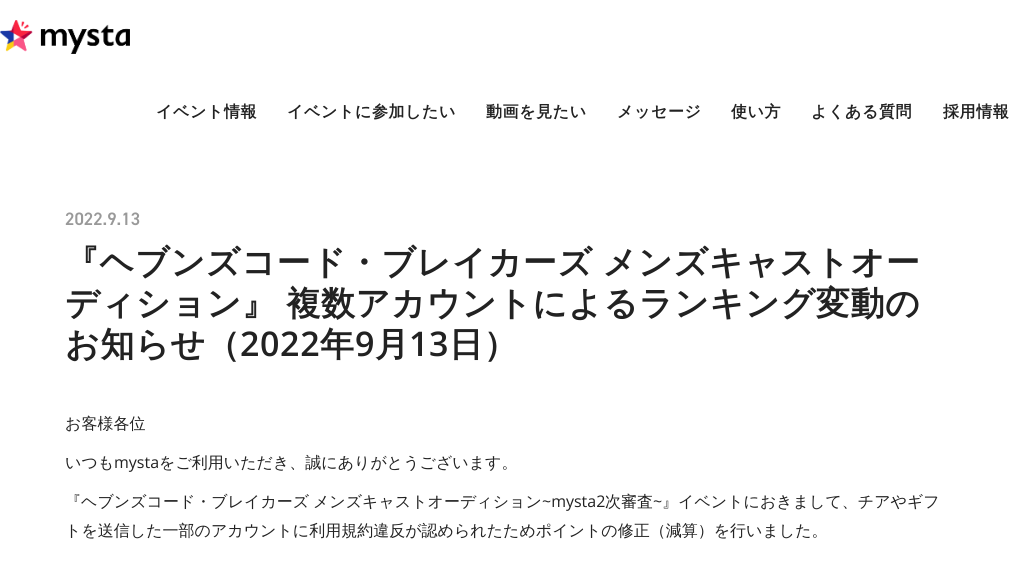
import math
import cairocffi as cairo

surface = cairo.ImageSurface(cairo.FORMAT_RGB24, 1009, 568)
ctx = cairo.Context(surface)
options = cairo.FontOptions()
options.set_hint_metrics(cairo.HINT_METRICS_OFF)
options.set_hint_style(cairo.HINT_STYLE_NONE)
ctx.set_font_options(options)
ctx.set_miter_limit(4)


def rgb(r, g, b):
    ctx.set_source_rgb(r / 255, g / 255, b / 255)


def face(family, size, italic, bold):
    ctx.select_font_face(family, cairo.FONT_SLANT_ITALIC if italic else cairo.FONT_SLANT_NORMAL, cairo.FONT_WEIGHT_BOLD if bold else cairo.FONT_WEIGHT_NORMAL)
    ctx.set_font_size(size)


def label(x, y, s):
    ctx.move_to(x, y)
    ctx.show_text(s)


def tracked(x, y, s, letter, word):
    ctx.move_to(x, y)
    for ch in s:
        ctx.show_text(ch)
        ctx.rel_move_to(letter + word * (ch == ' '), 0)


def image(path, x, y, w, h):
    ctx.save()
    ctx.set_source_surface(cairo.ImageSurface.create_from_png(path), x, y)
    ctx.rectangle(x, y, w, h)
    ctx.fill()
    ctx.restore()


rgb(255, 255, 255)
ctx.paint()
image('image0.png', 0, 20, 130, 34)
face('WenQuanYi Zen Hei', 16, 0, 1)
rgb(34, 34, 34)
tracked(156, 117, 'イベント情報', 0.6, 0)
tracked(287, 117, 'イベントに参加したい', 0.6, 0)
tracked(486, 117, '動画を見たい', 0.6, 0)
tracked(617, 117, 'メッセージ', 0.6, 0)
tracked(731, 117, '使い方', 0.6, 0)
tracked(811, 117, 'よくある質問', 0.6, 0)
tracked(943, 117, '採用情報', 0.6, 0)
face('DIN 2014 SemiBold', 18, 0, 0)
rgb(153, 153, 153)
label(65, 225, '2022.9.13')
face('WenQuanYi Zen Hei', 34, 0, 1)
rgb(34, 34, 34)
tracked(65, 274, '『ヘブンズコード・ブレイカーズ メンズキャストオー', 0.6, -1)
tracked(65, 315, 'ディション』 複数アカウントによるランキング変動の', 0.6, -1)
tracked(65, 356, 'お知らせ（', 0.6, 0)
face('Open Sans SemiBold', 34, 0, 0)
tracked(240, 356, '2022', 0.6, 0)
face('WenQuanYi Zen Hei', 34, 0, 1)
tracked(320, 356, '年', 0.6, 0)
face('Open Sans SemiBold', 34, 0, 0)
tracked(355, 356, '9', 0.6, 0)
face('WenQuanYi Zen Hei', 34, 0, 1)
tracked(375, 356, '月', 0.6, 0)
face('Open Sans SemiBold', 34, 0, 0)
tracked(409, 356, '13', 0.6, 0)
face('WenQuanYi Zen Hei', 34, 0, 1)
tracked(449, 356, '日）', 0.6, 0)
face('WenQuanYi Zen Hei Medium', 16, 0, 0)
label(65, 429, 'お客様各位')
label(65, 468, 'いつも')
face('Open Sans', 16, 0, 0)
label(114, 468, 'mysta')
face('WenQuanYi Zen Hei Medium', 16, 0, 0)
label(159, 468, 'をご利用いただき、誠にありがとうございます。')
tracked(65, 507, '『ヘブンズコード・ブレイカーズ メンズキャストオーディション', 0, -1)
face('Open Sans', 16, 0, 0)
label(542, 507, '~mysta2')
face('WenQuanYi Zen Hei Medium', 16, 0, 0)
label(605, 507, '次審査')
face('Open Sans', 16, 0, 0)
label(653, 507, '~')
face('WenQuanYi Zen Hei Medium', 16, 0, 0)
label(662, 507, '』イベントにおきまして、チアやギフ')
label(65, 536, 'トを送信した一部のアカウントに利用規約違反が認められたためポイントの修正（減算）を行いました。')
surface.write_to_png('render.png')
